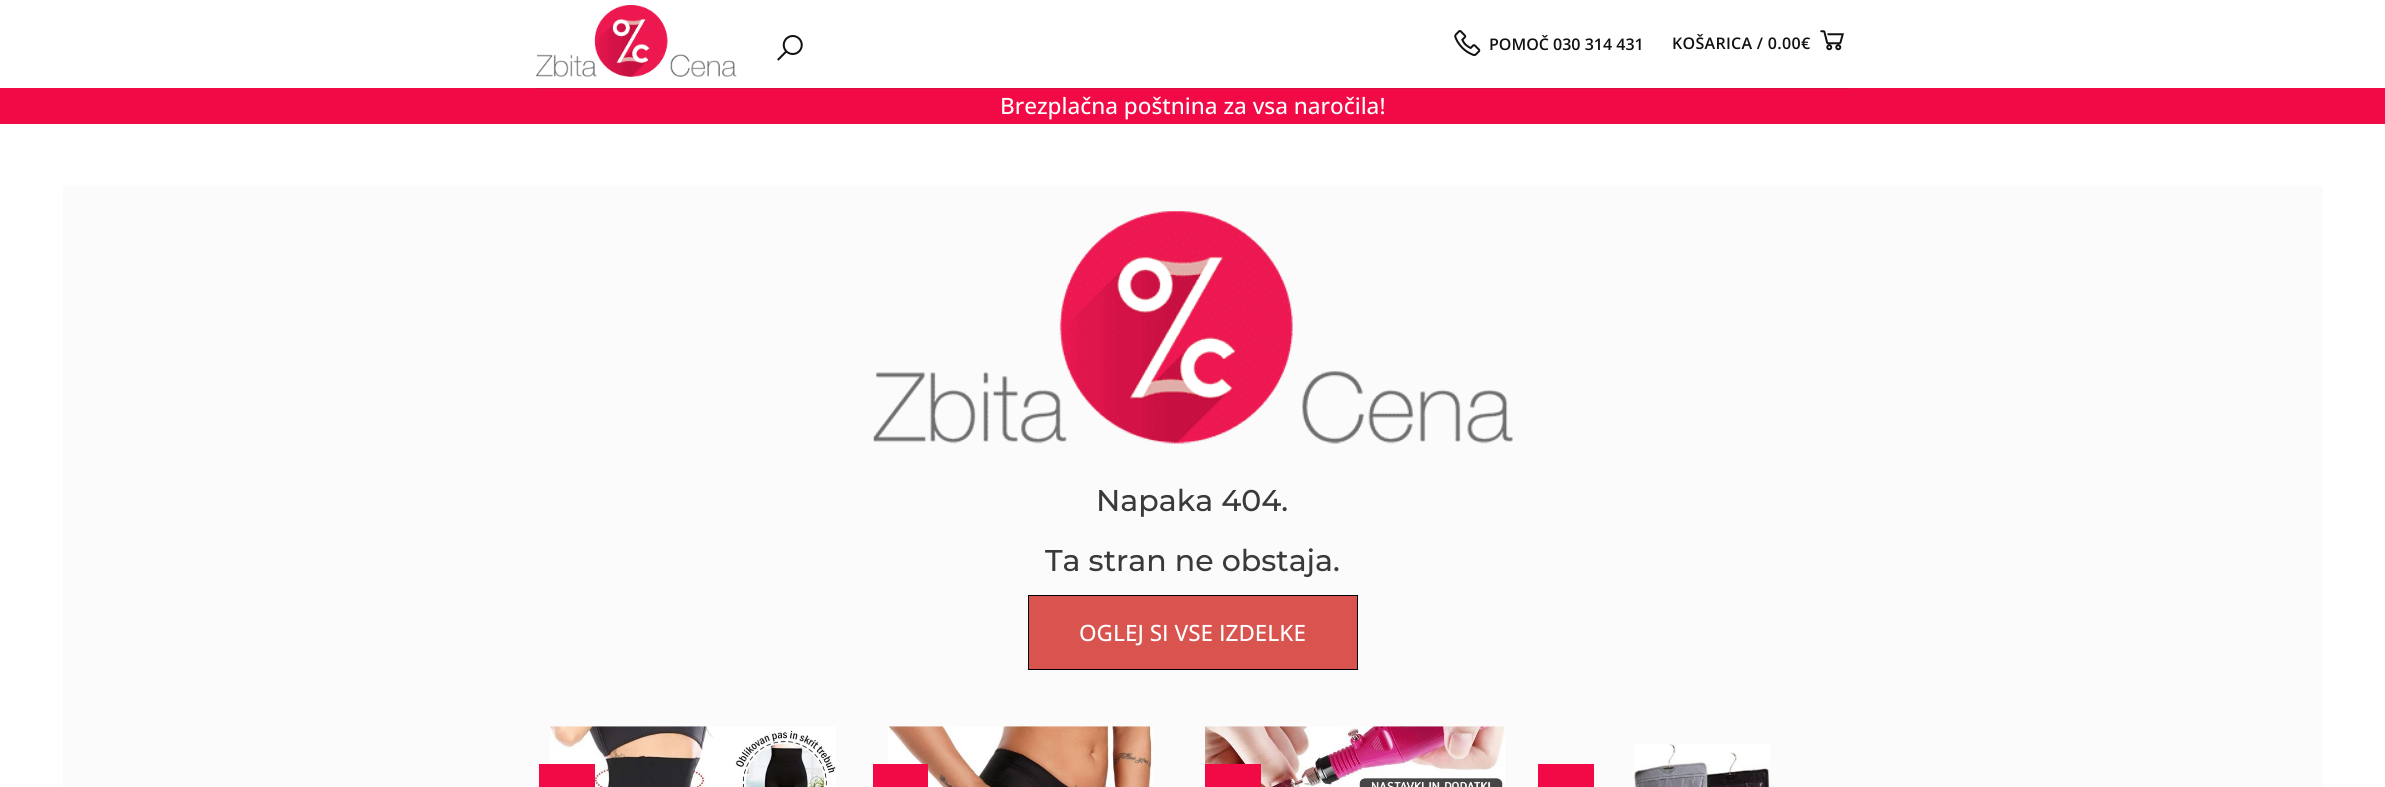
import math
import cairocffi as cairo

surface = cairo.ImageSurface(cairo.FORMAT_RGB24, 2385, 787)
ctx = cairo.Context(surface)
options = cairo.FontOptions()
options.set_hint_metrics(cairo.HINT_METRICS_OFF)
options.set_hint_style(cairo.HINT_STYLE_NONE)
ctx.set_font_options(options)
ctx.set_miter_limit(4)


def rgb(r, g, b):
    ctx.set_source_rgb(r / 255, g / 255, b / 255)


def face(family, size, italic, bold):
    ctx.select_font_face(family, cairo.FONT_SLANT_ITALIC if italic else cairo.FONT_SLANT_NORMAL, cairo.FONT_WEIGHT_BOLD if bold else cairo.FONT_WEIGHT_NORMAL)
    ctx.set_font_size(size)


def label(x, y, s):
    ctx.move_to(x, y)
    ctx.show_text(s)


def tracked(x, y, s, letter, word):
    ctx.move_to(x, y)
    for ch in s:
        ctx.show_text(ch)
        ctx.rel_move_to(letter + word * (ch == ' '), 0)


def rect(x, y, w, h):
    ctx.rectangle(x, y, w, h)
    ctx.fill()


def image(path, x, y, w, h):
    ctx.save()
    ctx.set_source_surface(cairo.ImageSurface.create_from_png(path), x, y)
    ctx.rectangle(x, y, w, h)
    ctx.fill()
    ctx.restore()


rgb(255, 255, 255)
ctx.paint()
image('image0.png', 536, 5, 201, 72)
image('image1.png', 777, 35, 26, 26)
image('image2.png', 1454, 30, 27, 26)
face('Open Sans SemiBold', 16, 0, 0)
rgb(17, 17, 17)
label(1489, 50, 'POMOČ 030 314 431')
tracked(1672, 49, 'KOŠARICA / 0.00€', 0.3, 0)
image('image3.png', 1820, 30, 24, 21)
rgb(242, 10, 70)
rect(0, 88, 2385, 36)
rgb(219, 11, 65)
rect(536, 88, 1313, 1)
face('Open Sans Medium', 22.5, 0, 0)
rgb(255, 255, 255)
label(1000, 114, 'Brezplačna poštnina za vsa naročila!')
rgb(251, 251, 251)
rect(63, 186, 2260, 601)
image('image4.png', 873, 211, 640, 234)
face('Montserrat Medium', 30, 0, 0)
rgb(58, 58, 58)
label(1096, 511, 'Napaka 404.')
label(1045, 571, 'Ta stran ne obstaja.')
rgb(217, 83, 79)
ctx.rectangle(1028.5, 595.5, 329, 74)
ctx.fill_preserve()
rgb(0, 0, 0)
ctx.set_line_width(1)
ctx.stroke()
face('Open Sans Medium', 22.5, 0, 0)
rgb(255, 255, 255)
label(1079, 641, 'OGLEJ SI VSE IZDELKE')
image('image5.png', 550, 726, 286, 61)
rgb(242, 10, 70)
rect(539, 764, 56, 23)
image('image6.png', 888, 726, 265, 61)
rect(873, 764, 55, 23)
image('image7.png', 1205, 726, 300, 61)
rect(1205, 764, 56, 23)
rect(1538, 764, 56, 23)
image('image8.png', 1634, 744, 136, 43)
surface.write_to_png('render.png')
